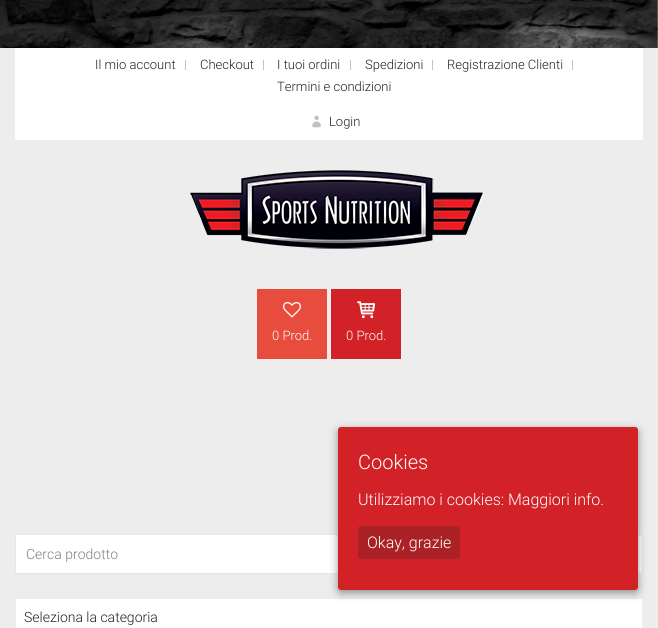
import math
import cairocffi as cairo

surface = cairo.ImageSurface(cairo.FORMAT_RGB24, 658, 628)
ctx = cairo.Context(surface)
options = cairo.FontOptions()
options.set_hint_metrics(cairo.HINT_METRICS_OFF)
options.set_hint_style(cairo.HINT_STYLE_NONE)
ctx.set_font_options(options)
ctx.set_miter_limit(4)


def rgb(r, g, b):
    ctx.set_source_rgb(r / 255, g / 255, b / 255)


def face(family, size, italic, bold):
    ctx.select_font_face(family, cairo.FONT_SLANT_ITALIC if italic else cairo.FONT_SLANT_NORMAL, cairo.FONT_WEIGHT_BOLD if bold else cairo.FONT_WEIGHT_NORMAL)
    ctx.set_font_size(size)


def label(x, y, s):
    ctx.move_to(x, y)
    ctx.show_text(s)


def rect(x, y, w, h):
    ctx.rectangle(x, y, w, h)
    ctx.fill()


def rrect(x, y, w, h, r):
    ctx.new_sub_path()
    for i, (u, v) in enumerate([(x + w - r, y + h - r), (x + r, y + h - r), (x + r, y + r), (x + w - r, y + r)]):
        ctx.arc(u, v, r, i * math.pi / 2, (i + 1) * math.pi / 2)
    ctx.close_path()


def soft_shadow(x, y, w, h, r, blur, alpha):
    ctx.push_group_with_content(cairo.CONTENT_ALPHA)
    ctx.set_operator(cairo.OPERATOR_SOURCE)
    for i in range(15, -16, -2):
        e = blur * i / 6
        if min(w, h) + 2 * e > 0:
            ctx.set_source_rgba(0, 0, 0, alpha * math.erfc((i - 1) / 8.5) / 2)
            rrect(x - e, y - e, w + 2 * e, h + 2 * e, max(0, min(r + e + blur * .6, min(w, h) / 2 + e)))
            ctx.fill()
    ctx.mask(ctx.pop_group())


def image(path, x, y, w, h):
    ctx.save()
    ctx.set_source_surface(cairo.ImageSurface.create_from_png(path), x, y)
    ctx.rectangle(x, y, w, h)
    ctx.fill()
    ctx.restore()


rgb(255, 255, 255)
ctx.paint()
image('image0.png', 0, 0, 658, 48)
gradient = cairo.LinearGradient(329, 48, 329, 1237)
gradient.add_color_stop_rgba(0.82, 0.929, 0.929, 0.929, 1)
gradient.add_color_stop_rgba(1, 0.867, 0.89, 0.902, 1)
ctx.set_source(gradient)
rect(0, 48, 658, 580)
rgb(255, 255, 255)
rect(15, 48, 628, 92)
face('Roboto Light', 13, 0, 0)
rgb(31, 34, 40)
label(95, 69, 'Il mio account')
rgb(189, 195, 199)
rect(185, 60, 1, 10)
rgb(31, 34, 40)
label(200, 69, 'Checkout')
rgb(189, 195, 199)
rect(263, 60, 1, 10)
rgb(31, 34, 40)
label(277, 69, 'I tuoi ordini')
rgb(189, 195, 199)
rect(350, 60, 1, 10)
rgb(31, 34, 40)
label(365, 69, 'Spedizioni')
rgb(189, 195, 199)
rect(432, 60, 1, 10)
rgb(31, 34, 40)
label(447, 69, 'Registrazione Clienti')
rgb(189, 195, 199)
rect(572, 60, 1, 10)
rgb(31, 34, 40)
label(277, 91, 'Termini e condizioni')
image('image1.png', 312, 115, 9, 13)
label(329, 126, 'Login')
image('image2.png', 190, 170, 294, 79)
rgb(231, 76, 60)
rect(257, 289, 70, 70)
image('image3.png', 283, 302, 18, 16)
rgb(255, 255, 255)
label(272, 340, '0 Prod.')
rgb(210, 34, 39)
rect(331, 289, 70, 70)
image('image4.png', 357, 301, 19, 18)
rgb(255, 255, 255)
label(346, 340, '0 Prod.')
ctx.rectangle(15.5, 534.5, 627, 39)
ctx.fill_preserve()
rgb(230, 230, 230)
ctx.set_line_width(1)
ctx.stroke()
face('Roboto Light', 14, 0, 0)
rgb(122, 129, 136)
label(26, 559, 'Cerca prodotto')
rgb(255, 255, 255)
rect(16, 599, 626, 29)
rgb(31, 34, 40)
label(24, 622, 'Seleziona la categoria')
rgb(0, 0, 0)
soft_shadow(338, 430, 300, 163, 3, 4.5, 0.4)
rgb(210, 34, 39)
rrect(338, 427, 300, 163, 3)
ctx.fill()
face('Roboto Light', 20, 0, 0)
rgb(255, 255, 255)
label(358, 469, 'Cookies')
face('Roboto Light', 16, 0, 0)
label(358, 505, 'Utilizziamo i cookies: Maggiori info.')
rgb(171, 34, 38)
rrect(358, 526, 102, 33, 3)
ctx.fill()
rgb(255, 255, 255)
label(367, 548, 'Okay, grazie')
surface.write_to_png('render.png')
